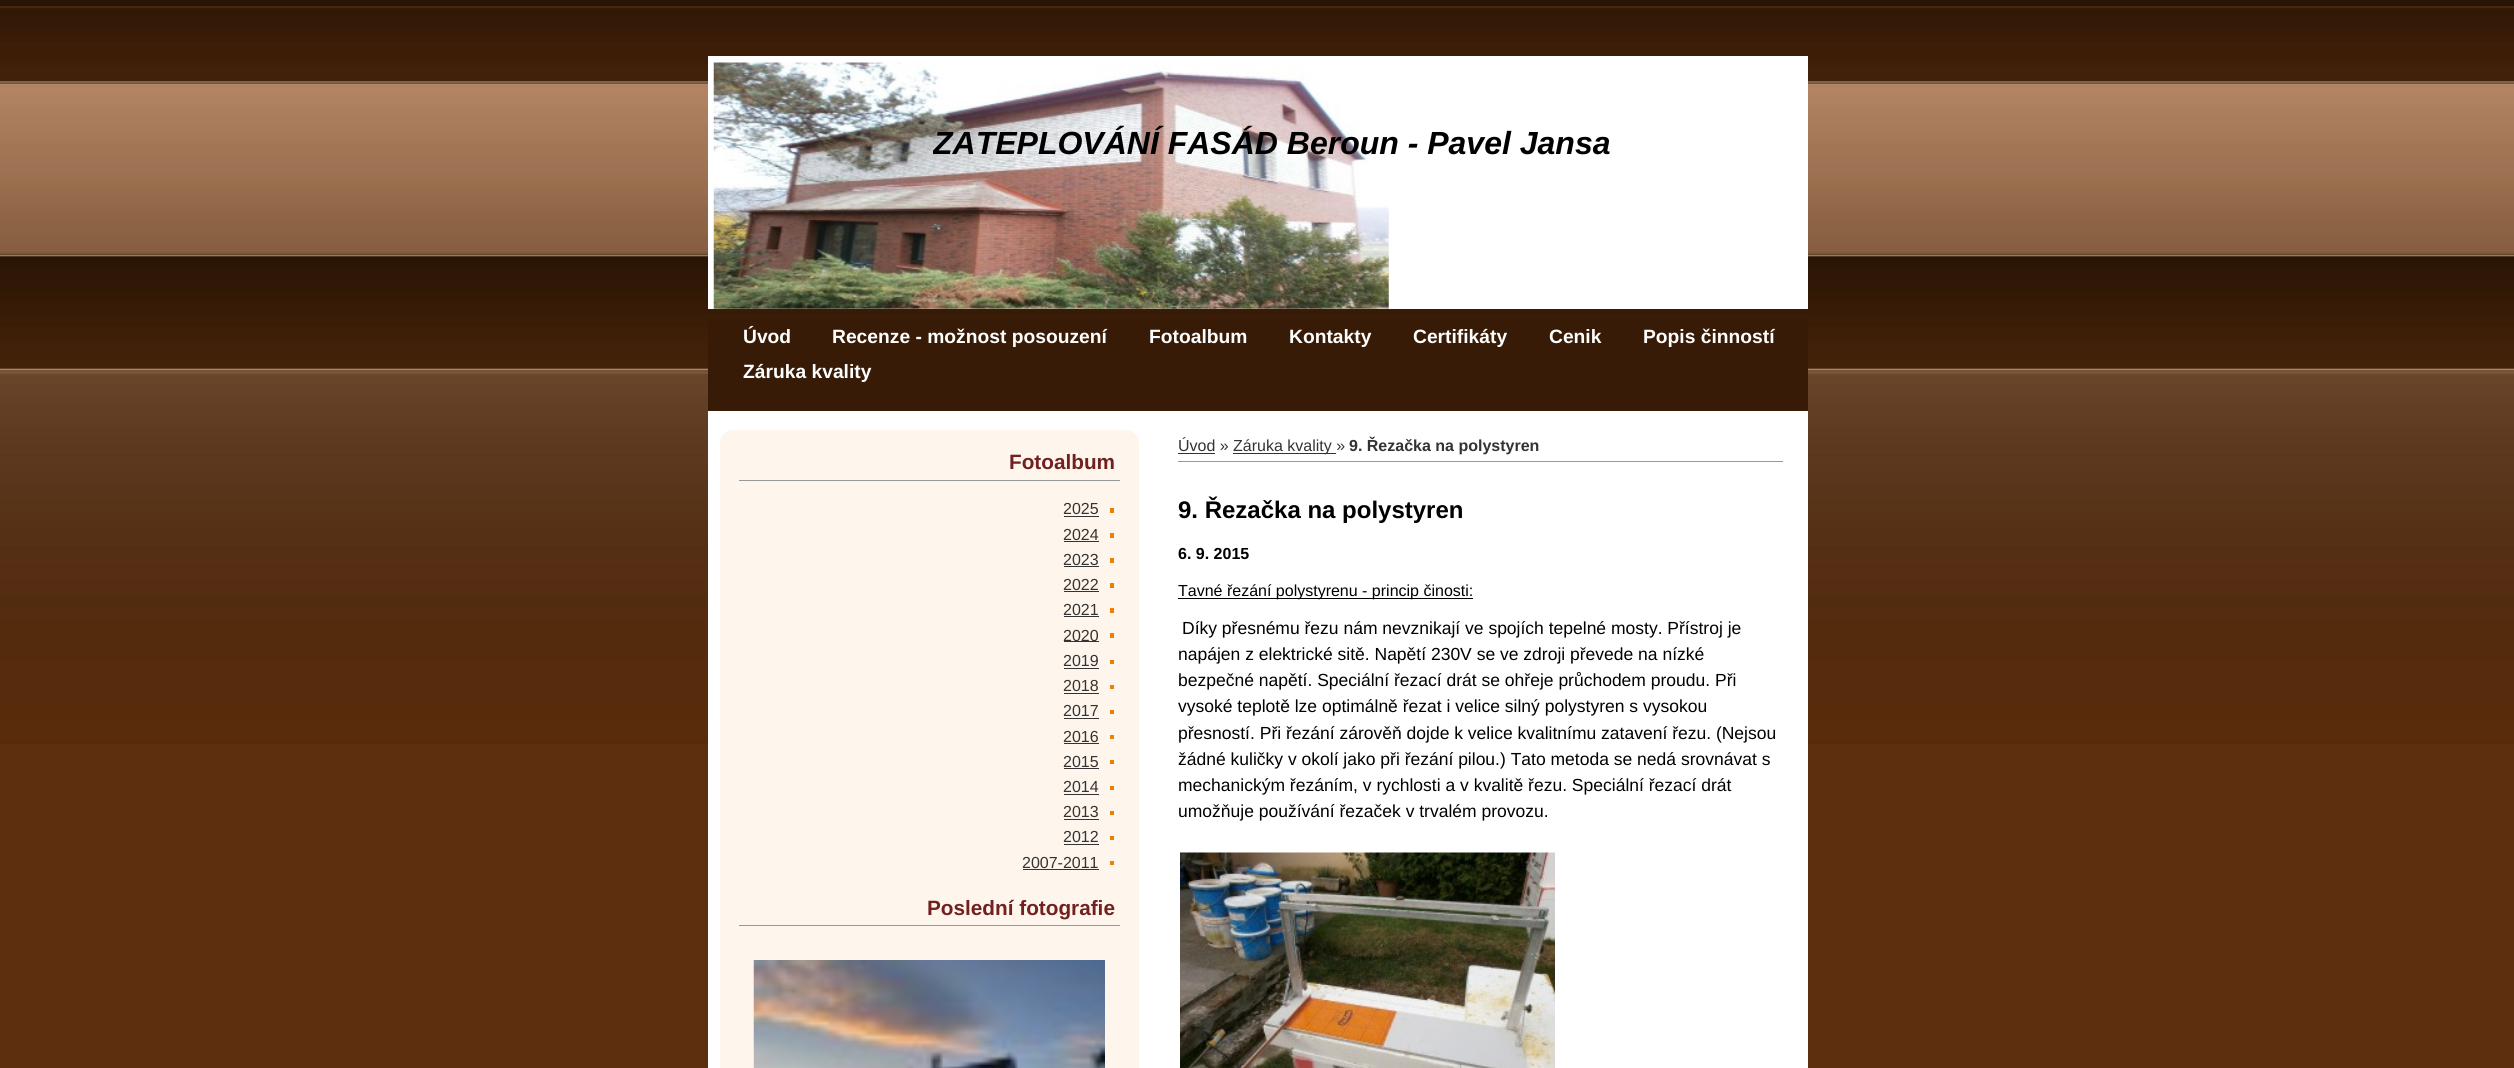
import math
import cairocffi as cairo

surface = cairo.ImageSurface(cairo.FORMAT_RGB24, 2514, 1068)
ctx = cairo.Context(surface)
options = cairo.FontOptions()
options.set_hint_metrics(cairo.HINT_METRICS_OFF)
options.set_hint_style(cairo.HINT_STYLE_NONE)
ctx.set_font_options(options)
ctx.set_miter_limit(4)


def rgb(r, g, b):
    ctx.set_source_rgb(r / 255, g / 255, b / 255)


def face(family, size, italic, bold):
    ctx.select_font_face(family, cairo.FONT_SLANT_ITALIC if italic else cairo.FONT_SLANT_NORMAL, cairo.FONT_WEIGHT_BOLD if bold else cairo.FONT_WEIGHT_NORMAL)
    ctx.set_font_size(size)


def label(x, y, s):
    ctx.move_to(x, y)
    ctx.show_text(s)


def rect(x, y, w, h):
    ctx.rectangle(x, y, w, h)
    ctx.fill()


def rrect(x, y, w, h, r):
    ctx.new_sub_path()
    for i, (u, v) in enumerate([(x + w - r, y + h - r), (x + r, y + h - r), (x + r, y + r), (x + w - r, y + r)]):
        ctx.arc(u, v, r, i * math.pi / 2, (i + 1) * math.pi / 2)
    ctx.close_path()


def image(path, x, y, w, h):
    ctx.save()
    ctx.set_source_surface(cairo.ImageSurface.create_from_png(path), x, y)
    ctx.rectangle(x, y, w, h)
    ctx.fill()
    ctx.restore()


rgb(93, 47, 14)
ctx.paint()
image('image0.png', 0, 0, 2514, 744)
rgb(255, 255, 255)
rect(708, 56, 1100, 253)
image('image1.png', 713, 62, 676, 247)
ctx.save()
ctx.rectangle(933, 119, 812, 150)
ctx.clip()
face('Liberation Sans', 32, 1, 1)
rgb(0, 0, 0)
label(933, 154, 'ZATEPLOVÁNÍ FASÁD Beroun - Pavel Jansa')
ctx.restore()
rect(708, 411, 1100, 657)
rgb(55, 27, 7)
rect(708, 319, 1100, 92)
face('Liberation Sans', 19.25, 0, 1)
rgb(255, 255, 255)
label(743, 343, 'Úvod')
label(832, 343, 'Recenze - možnost posouzení')
label(1149, 343, 'Fotoalbum')
label(1289, 343, 'Kontakty')
label(1413, 343, 'Certifikáty')
label(1549, 343, 'Cenik')
label(1643, 343, 'Popis činností')
label(743, 378, 'Záruka kvality')
rgb(254, 246, 236)
rrect(720, 430, 419, 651, 13)
ctx.fill()
rgb(153, 153, 153)
rect(739, 480, 381, 1)
face('Liberation Sans', 20.75, 0, 1)
rgb(114, 32, 32)
label(1009, 469, 'Fotoalbum')
rgb(238, 127, 0)
rect(1110, 508, 4, 5)
face('Liberation Sans', 16, 0, 0)
rgb(51, 51, 51)
label(1063, 514, '2025')
rect(1064, 516, 35, 1)
rgb(238, 127, 0)
rect(1110, 533, 4, 5)
rgb(51, 51, 51)
label(1063, 540, '2024')
rect(1064, 541, 35, 1)
rgb(238, 127, 0)
rect(1110, 558, 4, 5)
rgb(51, 51, 51)
label(1063, 565, '2023')
rect(1064, 566, 35, 1)
rgb(238, 127, 0)
rect(1110, 583, 4, 5)
rgb(51, 51, 51)
label(1063, 590, '2022')
rect(1064, 591, 35, 1)
rgb(238, 127, 0)
rect(1110, 608, 4, 5)
rgb(51, 51, 51)
label(1063, 615, '2021')
rect(1064, 616, 35, 1)
rgb(238, 127, 0)
rect(1110, 633, 4, 5)
rgb(51, 51, 51)
rect(1064, 641, 35, 1)
label(1063, 641, '2020')
rgb(238, 127, 0)
rect(1110, 660, 4, 4)
rgb(51, 51, 51)
label(1063, 666, '2019')
rect(1064, 668, 35, 1)
rgb(238, 127, 0)
rect(1110, 685, 4, 4)
rgb(51, 51, 51)
label(1063, 691, '2018')
rect(1064, 693, 35, 1)
rgb(238, 127, 0)
rect(1110, 710, 4, 4)
rgb(51, 51, 51)
label(1063, 716, '2017')
rect(1064, 718, 35, 1)
rgb(238, 127, 0)
rect(1110, 735, 4, 4)
rgb(51, 51, 51)
label(1063, 742, '2016')
rect(1064, 743, 35, 1)
rgb(238, 127, 0)
rect(1110, 760, 4, 4)
rgb(51, 51, 51)
label(1063, 767, '2015')
rect(1064, 768, 35, 1)
rgb(238, 127, 0)
rect(1110, 786, 4, 4)
rgb(51, 51, 51)
label(1063, 792, '2014')
rect(1064, 794, 35, 1)
rgb(238, 127, 0)
rect(1110, 811, 4, 4)
rgb(51, 51, 51)
label(1063, 817, '2013')
rect(1064, 819, 35, 1)
rgb(238, 127, 0)
rect(1110, 836, 4, 4)
rgb(51, 51, 51)
label(1063, 842, '2012')
rect(1064, 844, 35, 1)
rgb(238, 127, 0)
rect(1110, 861, 4, 4)
rgb(51, 51, 51)
label(1022, 868, '2007-2011')
rect(1023, 869, 76, 1)
rgb(153, 153, 153)
rect(739, 925, 381, 1)
face('Liberation Sans', 20.75, 0, 1)
rgb(114, 32, 32)
label(927, 915, 'Poslední fotografie')
image('image2.png', 753, 960, 352, 108)
rgb(153, 153, 153)
rect(1178, 461, 605, 1)
face('Liberation Sans', 16, 0, 0)
rgb(51, 51, 51)
label(1178, 451, 'Úvod »')
rect(1178, 453, 37, 1)
rect(1233, 453, 103, 1)
label(1233, 451, 'Záruka kvality »')
face('Liberation Sans', 16, 0, 1)
label(1349, 451, '9. Řezačka na polystyren')
face('Liberation Sans', 24, 0, 1)
rgb(0, 0, 0)
label(1178, 518, '9. Řezačka na polystyren')
face('Liberation Sans', 16, 0, 1)
label(1178, 559, '6. 9. 2015')
rect(1178, 598, 295, 1)
face('Liberation Sans', 16, 0, 0)
label(1178, 596, 'Tavné řezání polystyrenu - princip činosti:')
face('Liberation Sans', 17.5, 0, 0)
label(1182, 634, 'Díky přesnému řezu nám nevznikají ve spojích tepelné mosty. Přístroj je')
label(1178, 660, 'napájen z elektrické sitě. Napětí 230V se ve zdroji převede na nízké')
label(1178, 686, 'bezpečné napětí. Speciální řezací drát se ohřeje průchodem proudu. Při')
label(1178, 712, 'vysoké teplotě lze optimálně řezat i velice silný polystyren s vysokou')
label(1178, 739, 'přesností. Při řezání zárověň dojde k velice kvalitnímu zatavení řezu. (Nejsou')
label(1178, 765, 'žádné kuličky v okolí jako při řezání pilou.) Tato metoda se nedá srovnávat s')
label(1178, 791, 'mechanickým řezáním, v rychlosti a v kvalitě řezu. Speciální řezací drát')
label(1178, 817, 'umožňuje používání řezaček v trvalém provozu.')
image('image3.png', 1180, 852, 375, 216)
surface.write_to_png('render.png')
